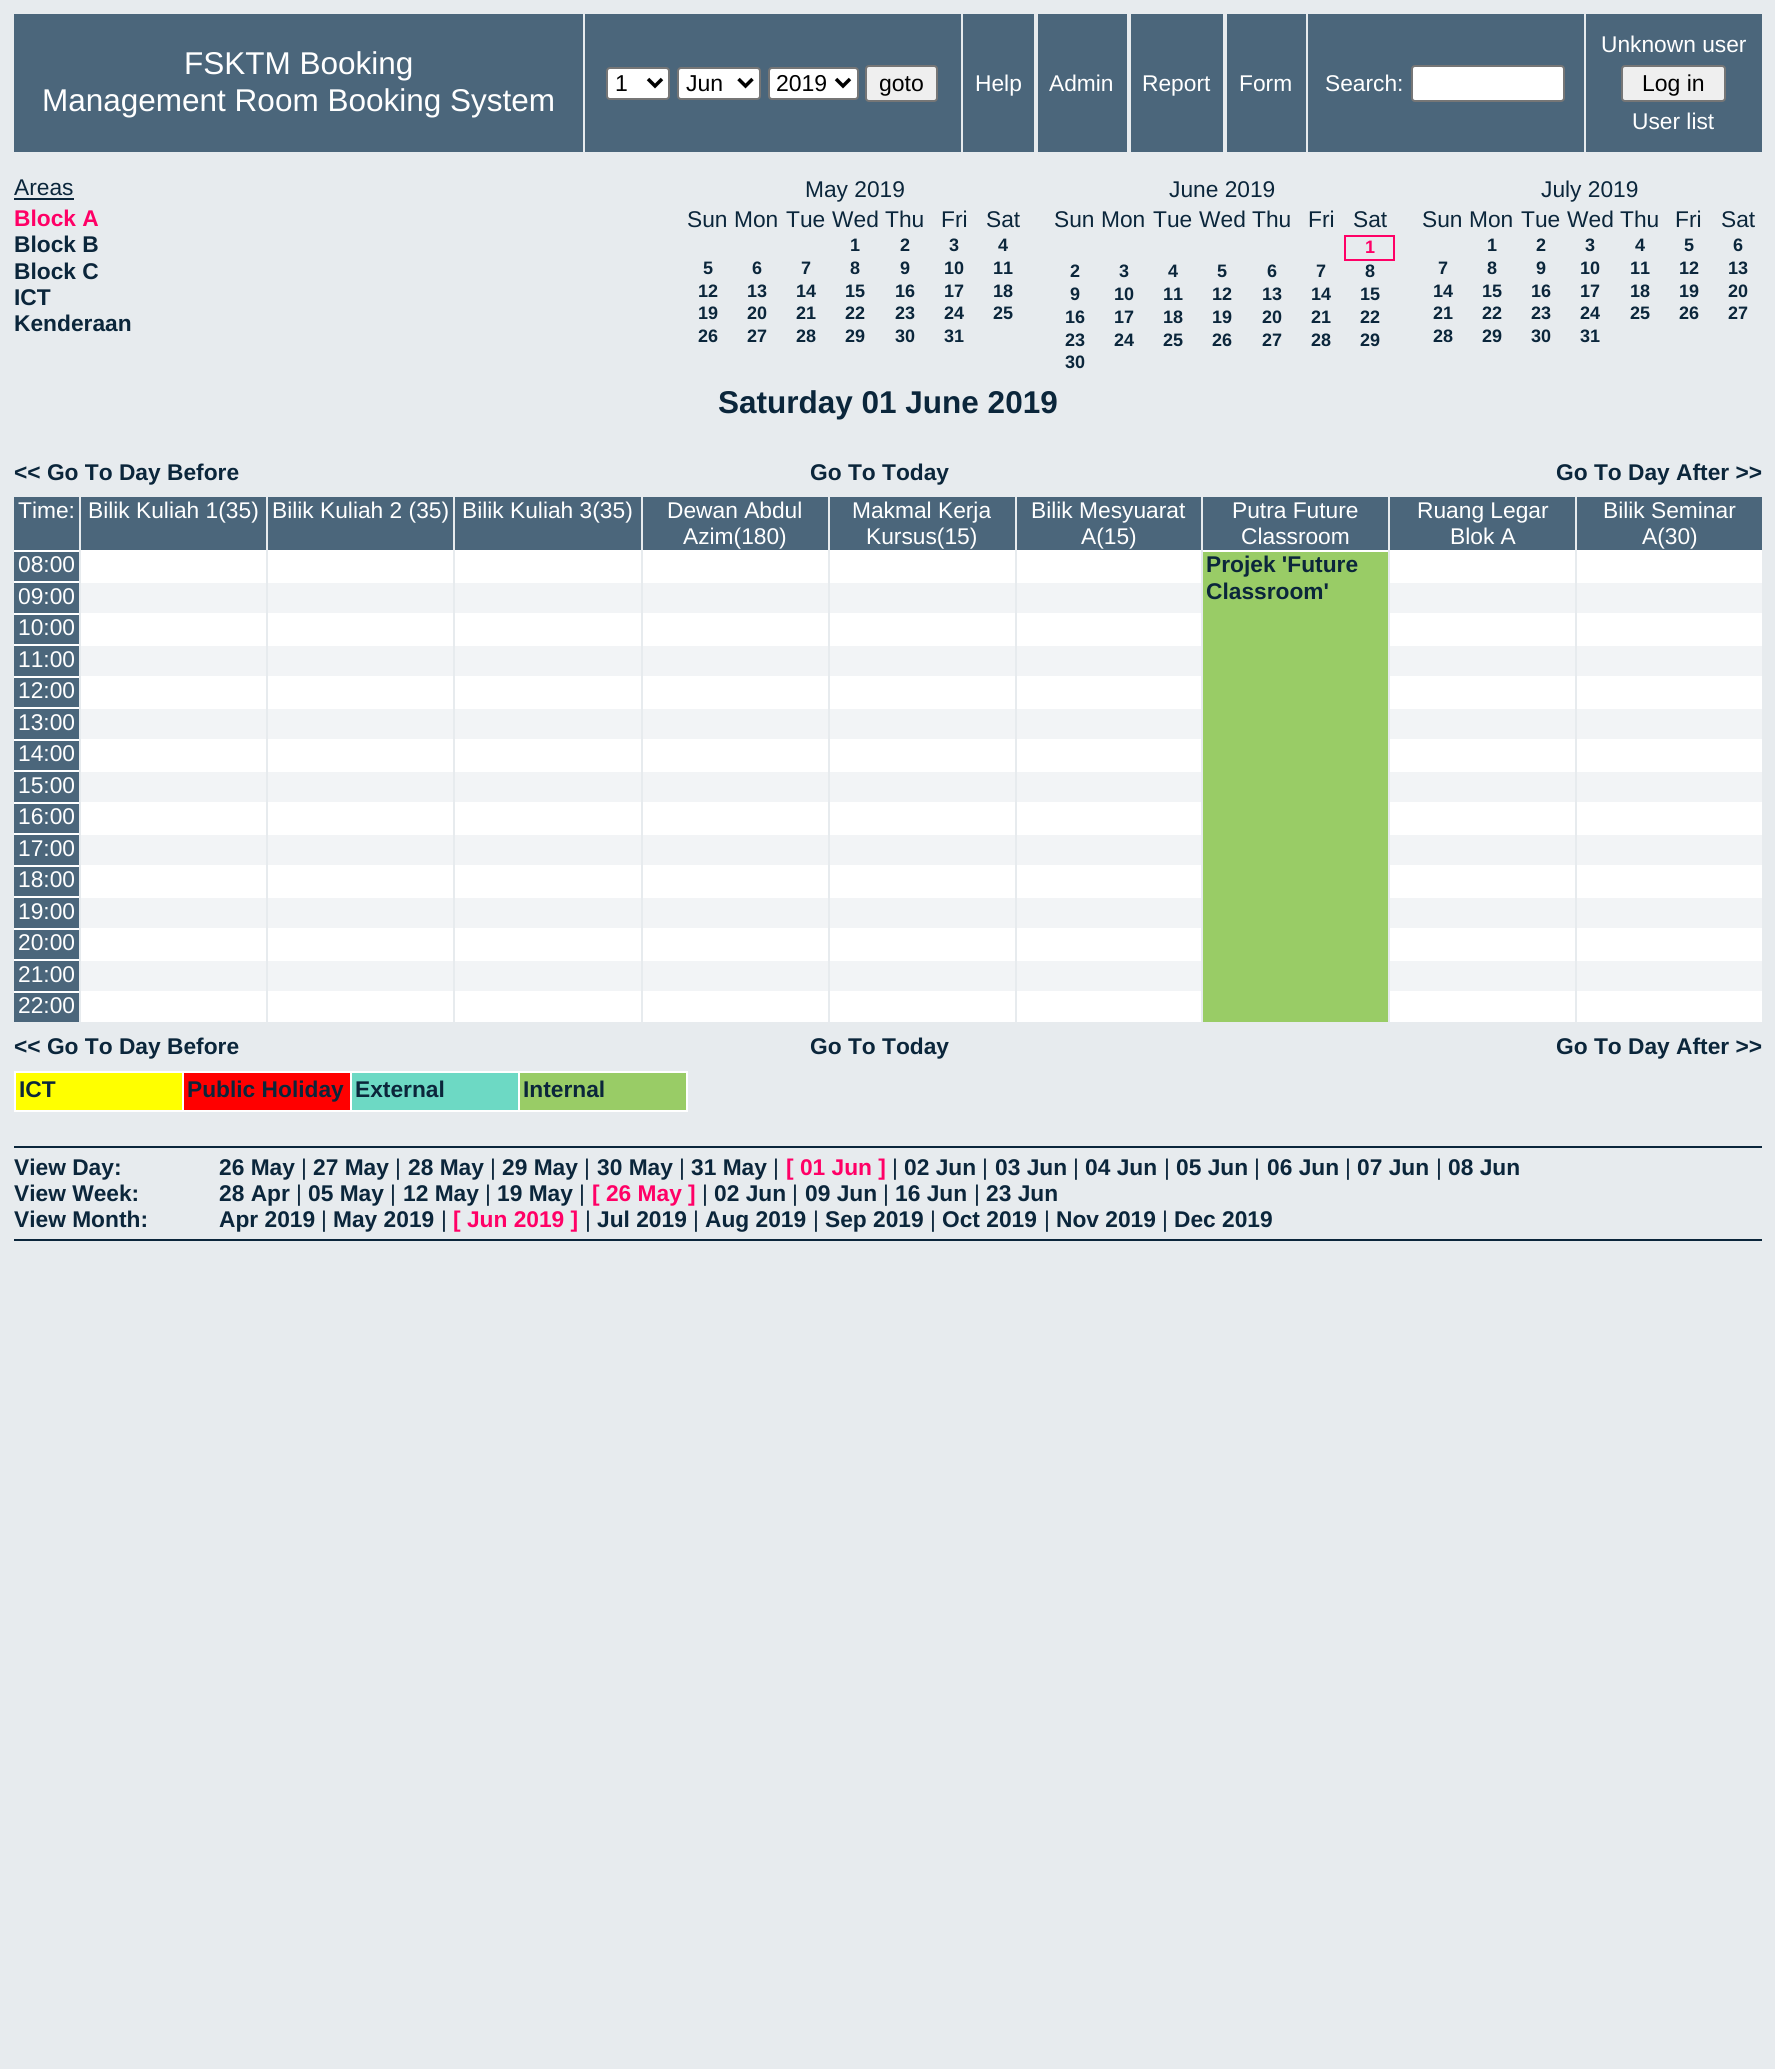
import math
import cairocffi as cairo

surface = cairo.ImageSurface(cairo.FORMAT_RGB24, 1775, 2069)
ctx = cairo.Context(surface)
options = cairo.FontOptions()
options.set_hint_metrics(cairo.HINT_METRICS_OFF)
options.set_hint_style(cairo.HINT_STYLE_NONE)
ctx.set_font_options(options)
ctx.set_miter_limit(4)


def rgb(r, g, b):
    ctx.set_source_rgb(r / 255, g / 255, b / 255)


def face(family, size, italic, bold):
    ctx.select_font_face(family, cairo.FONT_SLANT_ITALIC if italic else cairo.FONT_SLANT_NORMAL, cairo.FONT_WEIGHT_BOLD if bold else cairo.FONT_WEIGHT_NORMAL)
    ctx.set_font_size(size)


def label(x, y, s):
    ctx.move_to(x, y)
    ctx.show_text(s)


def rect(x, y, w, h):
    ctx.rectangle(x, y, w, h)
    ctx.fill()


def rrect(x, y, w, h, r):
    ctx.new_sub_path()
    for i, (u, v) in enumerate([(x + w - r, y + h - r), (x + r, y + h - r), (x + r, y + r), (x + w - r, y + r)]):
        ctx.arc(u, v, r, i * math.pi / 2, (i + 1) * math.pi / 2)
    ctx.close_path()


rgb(231, 235, 238)
ctx.paint()
rgb(75, 102, 123)
rect(14, 14, 569, 138)
face('Liberation Sans', 31.5, 0, 0)
rgb(255, 255, 255)
label(184, 74, 'FSKTM Booking')
label(42, 111, 'Management Room Booking System')
rgb(75, 102, 123)
rect(585, 14, 376, 138)
rgb(255, 255, 255)
rrect(607, 68, 62, 31, 3)
ctx.fill_preserve()
rgb(118, 118, 118)
ctx.stroke()
ctx.new_path()
ctx.move_to(648, 79)
ctx.line_to(655, 86)
ctx.line_to(662, 79)
rgb(0, 0, 0)
ctx.set_line_width(3.5)
ctx.stroke()
face('Liberation Sans', 23, 0, 0)
label(615, 91, '1')
rgb(255, 255, 255)
rrect(678, 68, 82, 31, 3)
ctx.fill_preserve()
rgb(118, 118, 118)
ctx.set_line_width(2)
ctx.stroke()
ctx.new_path()
ctx.move_to(738.5, 79)
ctx.line_to(745.5, 86)
ctx.line_to(752.5, 79)
rgb(0, 0, 0)
ctx.set_line_width(3.5)
ctx.stroke()
label(686, 91, 'Jun')
rgb(255, 255, 255)
rrect(769, 68, 89, 31, 3)
ctx.fill_preserve()
rgb(118, 118, 118)
ctx.set_line_width(2)
ctx.stroke()
ctx.new_path()
ctx.move_to(836, 79)
ctx.line_to(843, 86)
ctx.line_to(850, 79)
rgb(0, 0, 0)
ctx.set_line_width(3.5)
ctx.stroke()
label(776, 91, '2019')
rgb(239, 239, 239)
rrect(866, 66, 71, 35, 3)
ctx.fill_preserve()
rgb(118, 118, 118)
ctx.set_line_width(2)
ctx.stroke()
rgb(0, 0, 0)
label(879, 91, 'goto')
rgb(75, 102, 123)
rect(963, 14, 71, 138)
face('Liberation Sans', 22.75, 0, 0)
rgb(255, 255, 255)
label(975, 91, 'Help')
rgb(75, 102, 123)
rect(1038, 14, 89, 138)
rgb(255, 255, 255)
label(1049, 91, 'Admin')
rgb(75, 102, 123)
rect(1131, 14, 92, 138)
rgb(255, 255, 255)
label(1142, 91, 'Report')
rgb(75, 102, 123)
rect(1227, 14, 79, 138)
rgb(255, 255, 255)
label(1239, 91, 'Form')
rgb(75, 102, 123)
rect(1308, 14, 276, 138)
rgb(255, 255, 255)
label(1325, 91, 'Search:')
rrect(1412, 66, 152, 35, 3)
ctx.fill_preserve()
rgb(118, 118, 118)
ctx.stroke()
rgb(75, 102, 123)
rect(1586, 14, 176, 138)
rgb(255, 255, 255)
label(1601, 52, 'Unknown user')
rgb(239, 239, 239)
rrect(1622, 66, 103, 35, 3)
ctx.fill_preserve()
rgb(118, 118, 118)
ctx.stroke()
face('Liberation Sans', 23, 0, 0)
rgb(0, 0, 0)
label(1642, 91, 'Log in')
face('Liberation Sans', 22.75, 0, 0)
rgb(255, 255, 255)
label(1632, 129, 'User list')
rgb(11, 38, 59)
label(14, 195, 'Areas')
rect(14, 198, 60, 2)
face('Liberation Sans', 22.75, 0, 1)
rgb(255, 0, 102)
label(14, 226, 'Block A')
rgb(11, 38, 59)
label(14, 252, 'Block B')
label(14, 279, 'Block C')
label(14, 305, 'ICT')
label(14, 331, 'Kenderaan')
face('Liberation Sans', 22.75, 0, 0)
label(805, 197, 'May 2019')
label(687, 227, 'Sun')
label(734, 227, 'Mon')
label(786, 227, 'Tue')
label(832, 227, 'Wed')
label(885, 227, 'Thu')
label(941, 227, 'Fri')
label(986, 227, 'Sat')
face('Liberation Sans', 18, 0, 1)
label(850, 251, '1')
label(900, 251, '2')
label(949, 251, '3')
label(998, 251, '4')
label(703, 274, '5')
label(752, 274, '6')
label(801, 274, '7')
label(850, 274, '8')
label(900, 274, '9')
label(944, 274, '10')
label(993, 274, '11')
label(698, 297, '12')
label(747, 297, '13')
label(796, 297, '14')
label(845, 297, '15')
label(895, 297, '16')
label(944, 297, '17')
label(993, 297, '18')
label(698, 319, '19')
label(747, 319, '20')
label(796, 319, '21')
label(845, 319, '22')
label(895, 319, '23')
label(944, 319, '24')
label(993, 319, '25')
label(698, 342, '26')
label(747, 342, '27')
label(796, 342, '28')
label(845, 342, '29')
label(895, 342, '30')
label(944, 342, '31')
face('Liberation Sans', 22.75, 0, 0)
label(1169, 197, 'June 2019')
label(1054, 227, 'Sun')
label(1101, 227, 'Mon')
label(1153, 227, 'Tue')
label(1199, 227, 'Wed')
label(1252, 227, 'Thu')
label(1308, 227, 'Fri')
label(1353, 227, 'Sat')
rgb(255, 0, 102)
rect(1344, 235, 51, 2)
rect(1393, 235, 2, 26)
rect(1344, 259, 51, 2)
rect(1344, 235, 2, 26)
face('Liberation Sans', 18, 0, 1)
label(1365, 253, '1')
rgb(11, 38, 59)
label(1070, 277, '2')
label(1119, 277, '3')
label(1168, 277, '4')
label(1217, 277, '5')
label(1267, 277, '6')
label(1316, 277, '7')
label(1365, 277, '8')
label(1070, 300, '9')
label(1114, 300, '10')
label(1163, 300, '11')
label(1212, 300, '12')
label(1262, 300, '13')
label(1311, 300, '14')
label(1360, 300, '15')
label(1065, 323, '16')
label(1114, 323, '17')
label(1163, 323, '18')
label(1212, 323, '19')
label(1262, 323, '20')
label(1311, 323, '21')
label(1360, 323, '22')
label(1065, 346, '23')
label(1114, 346, '24')
label(1163, 346, '25')
label(1212, 346, '26')
label(1262, 346, '27')
label(1311, 346, '28')
label(1360, 346, '29')
label(1065, 368, '30')
face('Liberation Sans', 22.75, 0, 0)
label(1541, 197, 'July 2019')
label(1422, 227, 'Sun')
label(1469, 227, 'Mon')
label(1521, 227, 'Tue')
label(1567, 227, 'Wed')
label(1620, 227, 'Thu')
label(1675, 227, 'Fri')
label(1721, 227, 'Sat')
face('Liberation Sans', 18, 0, 1)
label(1487, 251, '1')
label(1536, 251, '2')
label(1585, 251, '3')
label(1635, 251, '4')
label(1684, 251, '5')
label(1733, 251, '6')
label(1438, 274, '7')
label(1487, 274, '8')
label(1536, 274, '9')
label(1580, 274, '10')
label(1630, 274, '11')
label(1679, 274, '12')
label(1728, 274, '13')
label(1433, 297, '14')
label(1482, 297, '15')
label(1531, 297, '16')
label(1580, 297, '17')
label(1630, 297, '18')
label(1679, 297, '19')
label(1728, 297, '20')
label(1433, 319, '21')
label(1482, 319, '22')
label(1531, 319, '23')
label(1580, 319, '24')
label(1630, 319, '25')
label(1679, 319, '26')
label(1728, 319, '27')
label(1433, 342, '28')
label(1482, 342, '29')
label(1531, 342, '30')
label(1580, 342, '31')
face('Liberation Sans', 31.5, 0, 1)
label(718, 413, 'Saturday 01 June 2019')
face('Liberation Sans', 22.75, 0, 1)
label(14, 480, '<< Go To Day Before')
label(810, 480, 'Go To Today')
label(1556, 480, 'Go To Day After >>')
rgb(75, 102, 123)
rect(14, 497, 65, 53)
face('Liberation Sans', 22.75, 0, 0)
rgb(255, 255, 255)
label(18, 518, 'Time:')
rgb(75, 102, 123)
rect(81, 497, 185, 53)
rgb(255, 255, 255)
label(88, 518, 'Bilik Kuliah 1(35)')
rgb(75, 102, 123)
rect(268, 497, 185, 53)
rgb(255, 255, 255)
label(272, 518, 'Bilik Kuliah 2 (35)')
rgb(75, 102, 123)
rect(455, 497, 186, 53)
rgb(255, 255, 255)
label(462, 518, 'Bilik Kuliah 3(35)')
rgb(75, 102, 123)
rect(643, 497, 185, 53)
rgb(255, 255, 255)
label(667, 518, 'Dewan Abdul')
label(683, 544, 'Azim(180)')
rgb(75, 102, 123)
rect(830, 497, 185, 53)
rgb(255, 255, 255)
label(852, 518, 'Makmal Kerja')
label(866, 544, 'Kursus(15)')
rgb(75, 102, 123)
rect(1017, 497, 184, 53)
rgb(255, 255, 255)
label(1031, 518, 'Bilik Mesyuarat')
label(1081, 544, 'A(15)')
rgb(75, 102, 123)
rect(1203, 497, 185, 53)
rgb(255, 255, 255)
label(1232, 518, 'Putra Future')
label(1241, 544, 'Classroom')
rgb(75, 102, 123)
rect(1390, 497, 185, 53)
rgb(255, 255, 255)
label(1417, 518, 'Ruang Legar')
label(1450, 544, 'Blok A')
rgb(75, 102, 123)
rect(1577, 497, 185, 53)
rgb(255, 255, 255)
label(1603, 518, 'Bilik Seminar')
label(1642, 544, 'A(30)')
rgb(75, 102, 123)
rect(14, 552, 65, 29)
rgb(255, 255, 255)
rect(14, 550, 65, 2)
label(18, 572, '08:00')
rect(81, 550, 185, 31)
rect(268, 550, 185, 31)
rect(455, 550, 186, 31)
rect(643, 550, 185, 31)
rect(830, 550, 185, 31)
rect(1017, 550, 184, 31)
rgb(153, 204, 102)
rect(1203, 552, 185, 470)
rgb(255, 255, 255)
rect(1201, 550, 187, 2)
rgb(231, 235, 238)
rect(1201, 550, 2, 2)
face('Liberation Sans', 22.75, 0, 1)
rgb(11, 38, 59)
label(1206, 572, 'Projek \'Future')
label(1206, 599, 'Classroom\'')
rgb(255, 255, 255)
rect(1390, 550, 185, 31)
rect(1577, 550, 185, 31)
rgb(242, 244, 246)
rect(81, 583, 185, 30)
rgb(255, 255, 255)
rect(14, 581, 1187, 2)
rgb(231, 235, 238)
rect(79, 581, 2, 2)
rgb(242, 244, 246)
rect(268, 583, 185, 30)
rgb(231, 235, 238)
rect(266, 581, 2, 2)
rgb(242, 244, 246)
rect(455, 583, 186, 30)
rgb(231, 235, 238)
rect(453, 581, 2, 2)
rgb(242, 244, 246)
rect(643, 583, 185, 30)
rgb(231, 235, 238)
rect(641, 581, 2, 2)
rgb(242, 244, 246)
rect(830, 583, 185, 30)
rgb(231, 235, 238)
rect(828, 581, 2, 2)
rgb(242, 244, 246)
rect(1017, 583, 184, 30)
rgb(231, 235, 238)
rect(1015, 581, 2, 2)
rgb(242, 244, 246)
rect(1390, 583, 185, 30)
rgb(255, 255, 255)
rect(1388, 581, 374, 2)
rgb(231, 235, 238)
rect(1388, 581, 2, 2)
rgb(75, 102, 123)
rect(14, 583, 65, 30)
face('Liberation Sans', 22.75, 0, 0)
rgb(255, 255, 255)
label(18, 604, '09:00')
rgb(242, 244, 246)
rect(1577, 583, 185, 30)
rgb(231, 235, 238)
rect(1575, 581, 2, 2)
rgb(75, 102, 123)
rect(14, 615, 65, 29)
rgb(255, 255, 255)
rect(14, 613, 65, 2)
label(18, 635, '10:00')
rect(81, 613, 185, 31)
rect(268, 613, 185, 31)
rect(455, 613, 186, 31)
rect(643, 613, 185, 31)
rect(830, 613, 185, 31)
rect(1017, 613, 184, 31)
rect(1390, 613, 185, 31)
rect(1577, 613, 185, 31)
rgb(242, 244, 246)
rect(81, 646, 185, 30)
rgb(255, 255, 255)
rect(14, 644, 1187, 2)
rgb(231, 235, 238)
rect(79, 644, 2, 2)
rgb(242, 244, 246)
rect(268, 646, 185, 30)
rgb(231, 235, 238)
rect(266, 644, 2, 2)
rgb(242, 244, 246)
rect(455, 646, 186, 30)
rgb(231, 235, 238)
rect(453, 644, 2, 2)
rgb(242, 244, 246)
rect(643, 646, 185, 30)
rgb(231, 235, 238)
rect(641, 644, 2, 2)
rgb(242, 244, 246)
rect(830, 646, 185, 30)
rgb(231, 235, 238)
rect(828, 644, 2, 2)
rgb(242, 244, 246)
rect(1017, 646, 184, 30)
rgb(231, 235, 238)
rect(1015, 644, 2, 2)
rgb(242, 244, 246)
rect(1390, 646, 185, 30)
rgb(255, 255, 255)
rect(1388, 644, 374, 2)
rgb(231, 235, 238)
rect(1388, 644, 2, 2)
rgb(75, 102, 123)
rect(14, 646, 65, 30)
rgb(255, 255, 255)
label(18, 667, '11:00')
rgb(242, 244, 246)
rect(1577, 646, 185, 30)
rgb(231, 235, 238)
rect(1575, 644, 2, 2)
rgb(75, 102, 123)
rect(14, 678, 65, 29)
rgb(255, 255, 255)
rect(14, 676, 65, 2)
label(18, 698, '12:00')
rect(81, 676, 185, 31)
rect(268, 676, 185, 31)
rect(455, 676, 186, 31)
rect(643, 676, 185, 31)
rect(830, 676, 185, 31)
rect(1017, 676, 184, 31)
rect(1390, 676, 185, 31)
rect(1577, 676, 185, 31)
rgb(242, 244, 246)
rect(81, 709, 185, 30)
rgb(255, 255, 255)
rect(14, 707, 1187, 2)
rgb(231, 235, 238)
rect(79, 707, 2, 2)
rgb(242, 244, 246)
rect(268, 709, 185, 30)
rgb(231, 235, 238)
rect(266, 707, 2, 2)
rgb(242, 244, 246)
rect(455, 709, 186, 30)
rgb(231, 235, 238)
rect(453, 707, 2, 2)
rgb(242, 244, 246)
rect(643, 709, 185, 30)
rgb(231, 235, 238)
rect(641, 707, 2, 2)
rgb(242, 244, 246)
rect(830, 709, 185, 30)
rgb(231, 235, 238)
rect(828, 707, 2, 2)
rgb(242, 244, 246)
rect(1017, 709, 184, 30)
rgb(231, 235, 238)
rect(1015, 707, 2, 2)
rgb(242, 244, 246)
rect(1390, 709, 185, 30)
rgb(255, 255, 255)
rect(1388, 707, 374, 2)
rgb(231, 235, 238)
rect(1388, 707, 2, 2)
rgb(75, 102, 123)
rect(14, 709, 65, 30)
rgb(255, 255, 255)
label(18, 730, '13:00')
rgb(242, 244, 246)
rect(1577, 709, 185, 30)
rgb(231, 235, 238)
rect(1575, 707, 2, 2)
rgb(75, 102, 123)
rect(14, 741, 65, 29)
rgb(255, 255, 255)
rect(14, 739, 65, 2)
label(18, 761, '14:00')
rect(81, 739, 185, 31)
rect(268, 739, 185, 31)
rect(455, 739, 186, 31)
rect(643, 739, 185, 31)
rect(830, 739, 185, 31)
rect(1017, 739, 184, 31)
rect(1390, 739, 185, 31)
rect(1577, 739, 185, 31)
rgb(242, 244, 246)
rect(81, 772, 185, 30)
rgb(255, 255, 255)
rect(14, 770, 1187, 2)
rgb(231, 235, 238)
rect(79, 770, 2, 2)
rgb(242, 244, 246)
rect(268, 772, 185, 30)
rgb(231, 235, 238)
rect(266, 770, 2, 2)
rgb(242, 244, 246)
rect(455, 772, 186, 30)
rgb(231, 235, 238)
rect(453, 770, 2, 2)
rgb(242, 244, 246)
rect(643, 772, 185, 30)
rgb(231, 235, 238)
rect(641, 770, 2, 2)
rgb(242, 244, 246)
rect(830, 772, 185, 30)
rgb(231, 235, 238)
rect(828, 770, 2, 2)
rgb(242, 244, 246)
rect(1017, 772, 184, 30)
rgb(231, 235, 238)
rect(1015, 770, 2, 2)
rgb(242, 244, 246)
rect(1390, 772, 185, 30)
rgb(255, 255, 255)
rect(1388, 770, 374, 2)
rgb(231, 235, 238)
rect(1388, 770, 2, 2)
rgb(75, 102, 123)
rect(14, 772, 65, 30)
rgb(255, 255, 255)
label(18, 793, '15:00')
rgb(242, 244, 246)
rect(1577, 772, 185, 30)
rgb(231, 235, 238)
rect(1575, 770, 2, 2)
rgb(75, 102, 123)
rect(14, 804, 65, 29)
rgb(255, 255, 255)
rect(14, 802, 65, 2)
label(18, 824, '16:00')
rect(81, 802, 185, 31)
rect(268, 802, 185, 31)
rect(455, 802, 186, 31)
rect(643, 802, 185, 31)
rect(830, 802, 185, 31)
rect(1017, 802, 184, 31)
rect(1390, 802, 185, 31)
rect(1577, 802, 185, 31)
rgb(242, 244, 246)
rect(81, 835, 185, 30)
rgb(255, 255, 255)
rect(14, 833, 1187, 2)
rgb(231, 235, 238)
rect(79, 833, 2, 2)
rgb(242, 244, 246)
rect(268, 835, 185, 30)
rgb(231, 235, 238)
rect(266, 833, 2, 2)
rgb(242, 244, 246)
rect(455, 835, 186, 30)
rgb(231, 235, 238)
rect(453, 833, 2, 2)
rgb(242, 244, 246)
rect(643, 835, 185, 30)
rgb(231, 235, 238)
rect(641, 833, 2, 2)
rgb(242, 244, 246)
rect(830, 835, 185, 30)
rgb(231, 235, 238)
rect(828, 833, 2, 2)
rgb(242, 244, 246)
rect(1017, 835, 184, 30)
rgb(231, 235, 238)
rect(1015, 833, 2, 2)
rgb(242, 244, 246)
rect(1390, 835, 185, 30)
rgb(255, 255, 255)
rect(1388, 833, 374, 2)
rgb(231, 235, 238)
rect(1388, 833, 2, 2)
rgb(75, 102, 123)
rect(14, 835, 65, 30)
rgb(255, 255, 255)
label(18, 856, '17:00')
rgb(242, 244, 246)
rect(1577, 835, 185, 30)
rgb(231, 235, 238)
rect(1575, 833, 2, 2)
rgb(75, 102, 123)
rect(14, 867, 65, 29)
rgb(255, 255, 255)
rect(14, 865, 65, 2)
label(18, 887, '18:00')
rect(81, 865, 185, 31)
rect(268, 865, 185, 31)
rect(455, 865, 186, 31)
rect(643, 865, 185, 31)
rect(830, 865, 185, 31)
rect(1017, 865, 184, 31)
rect(1390, 865, 185, 31)
rect(1577, 865, 185, 31)
rgb(242, 244, 246)
rect(81, 898, 185, 30)
rgb(255, 255, 255)
rect(14, 896, 1187, 2)
rgb(231, 235, 238)
rect(79, 896, 2, 2)
rgb(242, 244, 246)
rect(268, 898, 185, 30)
rgb(231, 235, 238)
rect(266, 896, 2, 2)
rgb(242, 244, 246)
rect(455, 898, 186, 30)
rgb(231, 235, 238)
rect(453, 896, 2, 2)
rgb(242, 244, 246)
rect(643, 898, 185, 30)
rgb(231, 235, 238)
rect(641, 896, 2, 2)
rgb(242, 244, 246)
rect(830, 898, 185, 30)
rgb(231, 235, 238)
rect(828, 896, 2, 2)
rgb(242, 244, 246)
rect(1017, 898, 184, 30)
rgb(231, 235, 238)
rect(1015, 896, 2, 2)
rgb(242, 244, 246)
rect(1390, 898, 185, 30)
rgb(255, 255, 255)
rect(1388, 896, 374, 2)
rgb(231, 235, 238)
rect(1388, 896, 2, 2)
rgb(75, 102, 123)
rect(14, 898, 65, 30)
rgb(255, 255, 255)
label(18, 919, '19:00')
rgb(242, 244, 246)
rect(1577, 898, 185, 30)
rgb(231, 235, 238)
rect(1575, 896, 2, 2)
rgb(75, 102, 123)
rect(14, 930, 65, 29)
rgb(255, 255, 255)
rect(14, 928, 65, 2)
label(18, 950, '20:00')
rect(81, 928, 185, 31)
rect(268, 928, 185, 31)
rect(455, 928, 186, 31)
rect(643, 928, 185, 31)
rect(830, 928, 185, 31)
rect(1017, 928, 184, 31)
rect(1390, 928, 185, 31)
rect(1577, 928, 185, 31)
rgb(242, 244, 246)
rect(81, 961, 185, 30)
rgb(255, 255, 255)
rect(14, 959, 1187, 2)
rgb(231, 235, 238)
rect(79, 959, 2, 2)
rgb(242, 244, 246)
rect(268, 961, 185, 30)
rgb(231, 235, 238)
rect(266, 959, 2, 2)
rgb(242, 244, 246)
rect(455, 961, 186, 30)
rgb(231, 235, 238)
rect(453, 959, 2, 2)
rgb(242, 244, 246)
rect(643, 961, 185, 30)
rgb(231, 235, 238)
rect(641, 959, 2, 2)
rgb(242, 244, 246)
rect(830, 961, 185, 30)
rgb(231, 235, 238)
rect(828, 959, 2, 2)
rgb(242, 244, 246)
rect(1017, 961, 184, 30)
rgb(231, 235, 238)
rect(1015, 959, 2, 2)
rgb(242, 244, 246)
rect(1390, 961, 185, 30)
rgb(255, 255, 255)
rect(1388, 959, 374, 2)
rgb(231, 235, 238)
rect(1388, 959, 2, 2)
rgb(75, 102, 123)
rect(14, 961, 65, 30)
rgb(255, 255, 255)
label(18, 982, '21:00')
rgb(242, 244, 246)
rect(1577, 961, 185, 30)
rgb(231, 235, 238)
rect(1575, 959, 2, 2)
rgb(75, 102, 123)
rect(14, 993, 65, 29)
rgb(255, 255, 255)
rect(14, 991, 65, 2)
label(18, 1013, '22:00')
rect(81, 991, 185, 31)
rect(268, 991, 185, 31)
rect(455, 991, 186, 31)
rect(643, 991, 185, 31)
rect(830, 991, 185, 31)
rect(1017, 991, 184, 31)
rect(1390, 991, 185, 31)
rect(1577, 991, 185, 31)
face('Liberation Sans', 22.75, 0, 1)
rgb(11, 38, 59)
label(14, 1054, '<< Go To Day Before')
label(810, 1054, 'Go To Today')
label(1556, 1054, 'Go To Day After >>')
rgb(255, 255, 0)
rect(16, 1073, 166, 37)
rgb(255, 255, 255)
rect(518, 1071, 170, 2)
rect(686, 1071, 2, 40)
rect(518, 1110, 170, 2)
rect(518, 1071, 2, 40)
rect(350, 1071, 170, 2)
rect(350, 1110, 170, 2)
rect(350, 1071, 2, 40)
rect(182, 1071, 170, 2)
rect(182, 1110, 170, 2)
rect(182, 1071, 2, 40)
rect(14, 1071, 170, 2)
rect(14, 1110, 170, 2)
rect(14, 1071, 2, 40)
rgb(11, 38, 59)
label(19, 1097, 'ICT')
rgb(255, 0, 0)
rect(184, 1073, 166, 37)
rgb(11, 38, 59)
label(187, 1097, 'Public Holiday')
rgb(109, 217, 196)
rect(352, 1073, 166, 37)
rgb(11, 38, 59)
label(355, 1097, 'External')
rgb(153, 204, 102)
rect(520, 1073, 166, 37)
rgb(11, 38, 59)
label(523, 1097, 'Internal')
rect(14, 1146, 1748, 2)
rect(14, 1239, 1748, 2)
label(14, 1175, 'View Day:')
label(219, 1175, '26 May')
face('Liberation Sans', 22.75, 0, 0)
label(301, 1175, '|')
face('Liberation Sans', 22.75, 0, 1)
label(313, 1175, '27 May')
face('Liberation Sans', 22.75, 0, 0)
label(395, 1175, '|')
face('Liberation Sans', 22.75, 0, 1)
label(408, 1175, '28 May')
face('Liberation Sans', 22.75, 0, 0)
label(490, 1175, '|')
face('Liberation Sans', 22.75, 0, 1)
label(502, 1175, '29 May')
face('Liberation Sans', 22.75, 0, 0)
label(584, 1175, '|')
face('Liberation Sans', 22.75, 0, 1)
label(597, 1175, '30 May')
face('Liberation Sans', 22.75, 0, 0)
label(679, 1175, '|')
face('Liberation Sans', 22.75, 0, 1)
label(691, 1175, '31 May')
face('Liberation Sans', 22.75, 0, 0)
label(773, 1175, '|')
face('Liberation Sans', 22.75, 0, 1)
rgb(255, 0, 102)
label(786, 1175, '[ 01 Jun ]')
face('Liberation Sans', 22.75, 0, 0)
rgb(11, 38, 59)
label(892, 1175, '|')
face('Liberation Sans', 22.75, 0, 1)
label(904, 1175, '02 Jun')
face('Liberation Sans', 22.75, 0, 0)
label(982, 1175, '|')
face('Liberation Sans', 22.75, 0, 1)
label(995, 1175, '03 Jun')
face('Liberation Sans', 22.75, 0, 0)
label(1073, 1175, '|')
face('Liberation Sans', 22.75, 0, 1)
label(1085, 1175, '04 Jun')
face('Liberation Sans', 22.75, 0, 0)
label(1164, 1175, '|')
face('Liberation Sans', 22.75, 0, 1)
label(1176, 1175, '05 Jun')
face('Liberation Sans', 22.75, 0, 0)
label(1254, 1175, '|')
face('Liberation Sans', 22.75, 0, 1)
label(1267, 1175, '06 Jun')
face('Liberation Sans', 22.75, 0, 0)
label(1345, 1175, '|')
face('Liberation Sans', 22.75, 0, 1)
label(1357, 1175, '07 Jun')
face('Liberation Sans', 22.75, 0, 0)
label(1436, 1175, '|')
face('Liberation Sans', 22.75, 0, 1)
label(1448, 1175, '08 Jun')
label(14, 1201, 'View Week:')
label(219, 1201, '28 Apr')
face('Liberation Sans', 22.75, 0, 0)
label(296, 1201, '|')
face('Liberation Sans', 22.75, 0, 1)
label(308, 1201, '05 May')
face('Liberation Sans', 22.75, 0, 0)
label(390, 1201, '|')
face('Liberation Sans', 22.75, 0, 1)
label(403, 1201, '12 May')
face('Liberation Sans', 22.75, 0, 0)
label(485, 1201, '|')
face('Liberation Sans', 22.75, 0, 1)
label(497, 1201, '19 May')
face('Liberation Sans', 22.75, 0, 0)
label(579, 1201, '|')
face('Liberation Sans', 22.75, 0, 1)
rgb(255, 0, 102)
label(592, 1201, '[ 26 May ]')
face('Liberation Sans', 22.75, 0, 0)
rgb(11, 38, 59)
label(702, 1201, '|')
face('Liberation Sans', 22.75, 0, 1)
label(714, 1201, '02 Jun')
face('Liberation Sans', 22.75, 0, 0)
label(792, 1201, '|')
face('Liberation Sans', 22.75, 0, 1)
label(805, 1201, '09 Jun')
face('Liberation Sans', 22.75, 0, 0)
label(883, 1201, '|')
face('Liberation Sans', 22.75, 0, 1)
label(895, 1201, '16 Jun')
face('Liberation Sans', 22.75, 0, 0)
label(974, 1201, '|')
face('Liberation Sans', 22.75, 0, 1)
label(986, 1201, '23 Jun')
label(14, 1227, 'View Month:')
label(219, 1227, 'Apr 2019')
face('Liberation Sans', 22.75, 0, 0)
label(321, 1227, '|')
face('Liberation Sans', 22.75, 0, 1)
label(333, 1227, 'May 2019')
face('Liberation Sans', 22.75, 0, 0)
label(441, 1227, '|')
face('Liberation Sans', 22.75, 0, 1)
rgb(255, 0, 102)
label(453, 1227, '[ Jun 2019 ]')
face('Liberation Sans', 22.75, 0, 0)
rgb(11, 38, 59)
label(585, 1227, '|')
face('Liberation Sans', 22.75, 0, 1)
label(597, 1227, 'Jul 2019')
face('Liberation Sans', 22.75, 0, 0)
label(693, 1227, '|')
face('Liberation Sans', 22.75, 0, 1)
label(705, 1227, 'Aug 2019')
face('Liberation Sans', 22.75, 0, 0)
label(813, 1227, '|')
face('Liberation Sans', 22.75, 0, 1)
label(825, 1227, 'Sep 2019')
face('Liberation Sans', 22.75, 0, 0)
label(930, 1227, '|')
face('Liberation Sans', 22.75, 0, 1)
label(942, 1227, 'Oct 2019')
face('Liberation Sans', 22.75, 0, 0)
label(1044, 1227, '|')
face('Liberation Sans', 22.75, 0, 1)
label(1056, 1227, 'Nov 2019')
face('Liberation Sans', 22.75, 0, 0)
label(1162, 1227, '|')
face('Liberation Sans', 22.75, 0, 1)
label(1174, 1227, 'Dec 2019')
surface.write_to_png('render.png')
